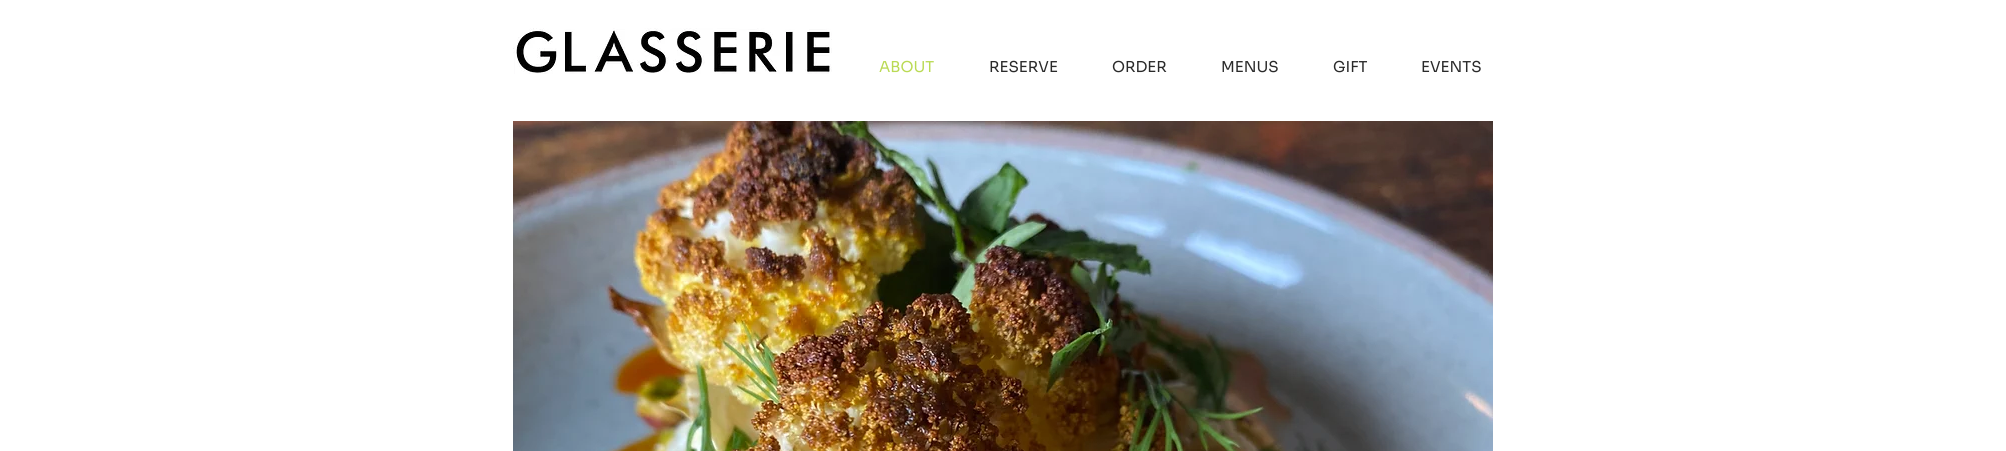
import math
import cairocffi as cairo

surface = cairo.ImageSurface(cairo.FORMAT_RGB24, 2006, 451)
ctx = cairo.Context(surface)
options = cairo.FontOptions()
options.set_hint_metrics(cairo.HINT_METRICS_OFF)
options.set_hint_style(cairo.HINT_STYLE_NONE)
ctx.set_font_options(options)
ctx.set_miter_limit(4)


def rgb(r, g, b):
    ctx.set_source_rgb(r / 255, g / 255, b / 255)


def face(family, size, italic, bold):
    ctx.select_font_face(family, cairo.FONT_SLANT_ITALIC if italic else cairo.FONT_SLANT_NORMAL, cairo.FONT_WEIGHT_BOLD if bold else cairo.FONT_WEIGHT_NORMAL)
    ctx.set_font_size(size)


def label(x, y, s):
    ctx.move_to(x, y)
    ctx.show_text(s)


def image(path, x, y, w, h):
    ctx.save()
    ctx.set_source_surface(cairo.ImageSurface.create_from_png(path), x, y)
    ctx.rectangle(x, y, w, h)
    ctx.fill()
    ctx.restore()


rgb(255, 255, 255)
ctx.paint()
image('image0.png', 513, 28, 319, 46)
face('Sora', 15, 0, 0)
rgb(186, 218, 85)
label(879, 72, 'ABOUT')
rgb(42, 42, 42)
label(989, 72, 'RESERVE')
label(1112, 72, 'ORDER')
label(1221, 72, 'MENUS')
label(1333, 72, 'GIFT')
label(1421, 72, 'EVENTS')
image('image1.png', 513, 121, 980, 330)
surface.write_to_png('render.png')
